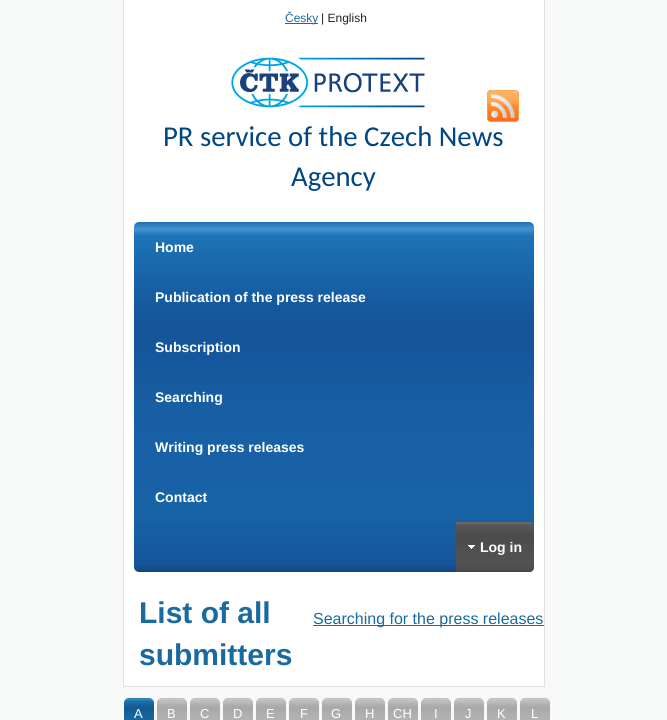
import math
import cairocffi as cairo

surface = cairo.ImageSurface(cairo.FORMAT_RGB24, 667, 720)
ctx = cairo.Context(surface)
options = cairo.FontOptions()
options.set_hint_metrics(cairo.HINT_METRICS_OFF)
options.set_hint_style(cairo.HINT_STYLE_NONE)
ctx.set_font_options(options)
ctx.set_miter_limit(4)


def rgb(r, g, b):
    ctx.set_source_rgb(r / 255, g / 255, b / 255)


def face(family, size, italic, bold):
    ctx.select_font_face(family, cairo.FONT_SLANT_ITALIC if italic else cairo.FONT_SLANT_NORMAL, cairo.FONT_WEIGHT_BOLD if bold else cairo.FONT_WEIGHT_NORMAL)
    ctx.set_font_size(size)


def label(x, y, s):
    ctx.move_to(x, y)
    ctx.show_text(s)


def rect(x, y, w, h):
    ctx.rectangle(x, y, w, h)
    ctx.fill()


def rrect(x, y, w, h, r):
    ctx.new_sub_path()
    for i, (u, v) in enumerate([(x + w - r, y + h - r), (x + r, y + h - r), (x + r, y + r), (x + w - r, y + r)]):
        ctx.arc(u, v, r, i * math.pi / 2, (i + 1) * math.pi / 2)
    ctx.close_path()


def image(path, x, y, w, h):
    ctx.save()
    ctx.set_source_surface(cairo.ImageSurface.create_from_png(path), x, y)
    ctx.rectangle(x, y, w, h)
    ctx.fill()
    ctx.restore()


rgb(247, 248, 248)
ctx.paint()
rgb(255, 255, 255)
rect(124, 0, 420, 686)
rgb(224, 224, 224)
ctx.set_fill_rule(cairo.FILL_RULE_EVEN_ODD)
ctx.new_path()
ctx.move_to(123, 0)
ctx.line_to(545, 0)
ctx.line_to(545, 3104)
ctx.curve_to(545, 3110, 541, 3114, 535, 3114)
ctx.line_to(133, 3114)
ctx.curve_to(127, 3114, 123, 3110, 123, 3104)
ctx.close_path()
ctx.move_to(124, 0)
ctx.line_to(544, 0)
ctx.line_to(544, 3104)
ctx.curve_to(544, 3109, 540, 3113, 535, 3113)
ctx.line_to(133, 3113)
ctx.curve_to(128, 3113, 124, 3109, 124, 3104)
ctx.close_path()
ctx.fill()
rgb(24, 106, 160)
rect(285, 23, 33, 1)
face('Liberation Sans', 12, 0, 0)
label(285, 22, 'Česky')
rgb(34, 34, 34)
label(321, 22, '| English')
image('image0.png', 231, 57, 194, 51)
face('Carlito', 28.75, 0, 0)
rgb(0, 69, 132)
label(163, 146, 'PR service of the Czech News')
label(291, 186, 'Agency')
image('image1.png', 487, 90, 32, 32)
gradient = cairo.LinearGradient(334, 222, 334, 572)
gradient.add_color_stop_rgba(0, 0.11, 0.443, 0.667, 1)
gradient.add_color_stop_rgba(0.02, 0.259, 0.569, 0.835, 1)
gradient.add_color_stop_rgba(0.04, 0.11, 0.451, 0.71, 1)
gradient.add_color_stop_rgba(0.24, 0.082, 0.349, 0.62, 1)
gradient.add_color_stop_rgba(0.28, 0.082, 0.337, 0.608, 1)
gradient.add_color_stop_rgba(0.36, 0.082, 0.337, 0.608, 1)
gradient.add_color_stop_rgba(0.5, 0.09, 0.365, 0.635, 1)
gradient.add_color_stop_rgba(0.66, 0.094, 0.38, 0.651, 1)
gradient.add_color_stop_rgba(0.84, 0.094, 0.384, 0.651, 1)
gradient.add_color_stop_rgba(0.98, 0.078, 0.329, 0.604, 1)
gradient.add_color_stop_rgba(1, 0.075, 0.275, 0.463, 1)
ctx.set_source(gradient)
rrect(134, 222, 400, 350, 5)
ctx.fill()
face('Liberation Sans', 14, 0, 1)
rgb(255, 255, 255)
label(155, 252, 'Home')
label(155, 302, 'Publication of the press release')
label(155, 352, 'Subscription')
label(155, 402, 'Searching')
label(155, 452, 'Writing press releases')
label(155, 502, 'Contact')
gradient = cairo.LinearGradient(495, 522, 495, 572)
gradient.add_color_stop_rgba(0, 0.333, 0.333, 0.333, 1)
gradient.add_color_stop_rgba(0.02, 0.471, 0.471, 0.471, 1)
gradient.add_color_stop_rgba(0.04, 0.353, 0.353, 0.353, 1)
gradient.add_color_stop_rgba(0.22, 0.306, 0.306, 0.306, 1)
gradient.add_color_stop_rgba(0.26, 0.298, 0.298, 0.298, 1)
gradient.add_color_stop_rgba(0.4, 0.298, 0.298, 0.298, 1)
gradient.add_color_stop_rgba(0.5, 0.314, 0.314, 0.314, 1)
gradient.add_color_stop_rgba(0.84, 0.322, 0.322, 0.322, 1)
gradient.add_color_stop_rgba(0.98, 0.294, 0.294, 0.294, 1)
gradient.add_color_stop_rgba(1, 0.231, 0.231, 0.231, 1)
ctx.set_source(gradient)
ctx.new_path()
ctx.move_to(456, 522)
ctx.line_to(529, 522)
ctx.curve_to(532, 522, 534, 524, 534, 527)
ctx.line_to(534, 567)
ctx.curve_to(534, 570, 532, 572, 529, 572)
ctx.line_to(456, 572)
ctx.close_path()
ctx.fill()
image('image2.png', 468, 545, 7, 4)
rgb(255, 255, 255)
label(480, 552, 'Log in')
rgb(225, 225, 225)
rect(124, 686, 420, 1)
face('Liberation Sans', 30, 0, 1)
rgb(24, 106, 160)
label(139, 623, 'List of all')
label(139, 665, 'submitters')
rect(313, 625, 231, 1)
face('Liberation Sans', 16, 0, 0)
label(313, 624, 'Searching for the press releases')
rgb(248, 248, 248)
rect(123, 687, 422, 33)
gradient = cairo.LinearGradient(139, 698, 139, 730)
gradient.add_color_stop_rgba(0, 0.059, 0.341, 0.533, 1)
gradient.add_color_stop_rgba(0.03, 0.306, 0.635, 0.827, 1)
gradient.add_color_stop_rgba(0.06, 0.11, 0.486, 0.69, 1)
gradient.add_color_stop_rgba(0.25, 0.082, 0.365, 0.58, 1)
gradient.add_color_stop_rgba(0.38, 0.082, 0.357, 0.576, 1)
gradient.add_color_stop_rgba(0.5, 0.086, 0.388, 0.604, 1)
gradient.add_color_stop_rgba(0.69, 0.094, 0.412, 0.624, 1)
gradient.add_color_stop_rgba(0.84, 0.09, 0.404, 0.616, 1)
gradient.add_color_stop_rgba(0.97, 0.078, 0.341, 0.561, 1)
gradient.add_color_stop_rgba(1, 0.208, 0.318, 0.408, 1)
ctx.set_source(gradient)
rrect(124, 698, 30, 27, 5)
ctx.fill()
face('Liberation Sans', 13, 0, 0)
rgb(255, 255, 255)
label(134, 718, 'A')
gradient = cairo.LinearGradient(172, 698, 172, 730)
gradient.add_color_stop_rgba(0, 0.694, 0.694, 0.694, 1)
gradient.add_color_stop_rgba(0.03, 0.8, 0.8, 0.8, 1)
gradient.add_color_stop_rgba(0.06, 0.761, 0.761, 0.761, 1)
gradient.add_color_stop_rgba(0.23, 0.682, 0.682, 0.682, 1)
gradient.add_color_stop_rgba(0.29, 0.663, 0.663, 0.663, 1)
gradient.add_color_stop_rgba(0.35, 0.663, 0.663, 0.663, 1)
gradient.add_color_stop_rgba(0.58, 0.694, 0.694, 0.694, 1)
gradient.add_color_stop_rgba(0.81, 0.706, 0.706, 0.706, 1)
gradient.add_color_stop_rgba(0.87, 0.698, 0.698, 0.698, 1)
gradient.add_color_stop_rgba(1, 0.651, 0.651, 0.651, 1)
ctx.set_source(gradient)
rrect(157, 698, 30, 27, 5)
ctx.fill()
rgb(255, 255, 255)
label(167, 718, 'B')
gradient = cairo.LinearGradient(205, 698, 205, 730)
gradient.add_color_stop_rgba(0, 0.694, 0.694, 0.694, 1)
gradient.add_color_stop_rgba(0.03, 0.8, 0.8, 0.8, 1)
gradient.add_color_stop_rgba(0.06, 0.761, 0.761, 0.761, 1)
gradient.add_color_stop_rgba(0.23, 0.682, 0.682, 0.682, 1)
gradient.add_color_stop_rgba(0.29, 0.663, 0.663, 0.663, 1)
gradient.add_color_stop_rgba(0.35, 0.663, 0.663, 0.663, 1)
gradient.add_color_stop_rgba(0.58, 0.694, 0.694, 0.694, 1)
gradient.add_color_stop_rgba(0.81, 0.706, 0.706, 0.706, 1)
gradient.add_color_stop_rgba(0.87, 0.698, 0.698, 0.698, 1)
gradient.add_color_stop_rgba(1, 0.651, 0.651, 0.651, 1)
ctx.set_source(gradient)
rrect(190, 698, 30, 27, 5)
ctx.fill()
rgb(255, 255, 255)
label(200, 718, 'C')
gradient = cairo.LinearGradient(238, 698, 238, 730)
gradient.add_color_stop_rgba(0, 0.694, 0.694, 0.694, 1)
gradient.add_color_stop_rgba(0.03, 0.8, 0.8, 0.8, 1)
gradient.add_color_stop_rgba(0.06, 0.761, 0.761, 0.761, 1)
gradient.add_color_stop_rgba(0.23, 0.682, 0.682, 0.682, 1)
gradient.add_color_stop_rgba(0.29, 0.663, 0.663, 0.663, 1)
gradient.add_color_stop_rgba(0.35, 0.663, 0.663, 0.663, 1)
gradient.add_color_stop_rgba(0.58, 0.694, 0.694, 0.694, 1)
gradient.add_color_stop_rgba(0.81, 0.706, 0.706, 0.706, 1)
gradient.add_color_stop_rgba(0.87, 0.698, 0.698, 0.698, 1)
gradient.add_color_stop_rgba(1, 0.651, 0.651, 0.651, 1)
ctx.set_source(gradient)
rrect(223, 698, 30, 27, 5)
ctx.fill()
rgb(255, 255, 255)
label(233, 718, 'D')
gradient = cairo.LinearGradient(271, 698, 271, 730)
gradient.add_color_stop_rgba(0, 0.694, 0.694, 0.694, 1)
gradient.add_color_stop_rgba(0.03, 0.8, 0.8, 0.8, 1)
gradient.add_color_stop_rgba(0.06, 0.761, 0.761, 0.761, 1)
gradient.add_color_stop_rgba(0.23, 0.682, 0.682, 0.682, 1)
gradient.add_color_stop_rgba(0.29, 0.663, 0.663, 0.663, 1)
gradient.add_color_stop_rgba(0.35, 0.663, 0.663, 0.663, 1)
gradient.add_color_stop_rgba(0.58, 0.694, 0.694, 0.694, 1)
gradient.add_color_stop_rgba(0.81, 0.706, 0.706, 0.706, 1)
gradient.add_color_stop_rgba(0.87, 0.698, 0.698, 0.698, 1)
gradient.add_color_stop_rgba(1, 0.651, 0.651, 0.651, 1)
ctx.set_source(gradient)
rrect(256, 698, 30, 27, 5)
ctx.fill()
rgb(255, 255, 255)
label(266, 718, 'E')
gradient = cairo.LinearGradient(304, 698, 304, 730)
gradient.add_color_stop_rgba(0, 0.694, 0.694, 0.694, 1)
gradient.add_color_stop_rgba(0.03, 0.8, 0.8, 0.8, 1)
gradient.add_color_stop_rgba(0.06, 0.761, 0.761, 0.761, 1)
gradient.add_color_stop_rgba(0.23, 0.682, 0.682, 0.682, 1)
gradient.add_color_stop_rgba(0.29, 0.663, 0.663, 0.663, 1)
gradient.add_color_stop_rgba(0.35, 0.663, 0.663, 0.663, 1)
gradient.add_color_stop_rgba(0.58, 0.694, 0.694, 0.694, 1)
gradient.add_color_stop_rgba(0.81, 0.706, 0.706, 0.706, 1)
gradient.add_color_stop_rgba(0.87, 0.698, 0.698, 0.698, 1)
gradient.add_color_stop_rgba(1, 0.651, 0.651, 0.651, 1)
ctx.set_source(gradient)
rrect(289, 698, 30, 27, 5)
ctx.fill()
rgb(255, 255, 255)
label(300, 718, 'F')
gradient = cairo.LinearGradient(337, 698, 337, 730)
gradient.add_color_stop_rgba(0, 0.694, 0.694, 0.694, 1)
gradient.add_color_stop_rgba(0.03, 0.8, 0.8, 0.8, 1)
gradient.add_color_stop_rgba(0.06, 0.761, 0.761, 0.761, 1)
gradient.add_color_stop_rgba(0.23, 0.682, 0.682, 0.682, 1)
gradient.add_color_stop_rgba(0.29, 0.663, 0.663, 0.663, 1)
gradient.add_color_stop_rgba(0.35, 0.663, 0.663, 0.663, 1)
gradient.add_color_stop_rgba(0.58, 0.694, 0.694, 0.694, 1)
gradient.add_color_stop_rgba(0.81, 0.706, 0.706, 0.706, 1)
gradient.add_color_stop_rgba(0.87, 0.698, 0.698, 0.698, 1)
gradient.add_color_stop_rgba(1, 0.651, 0.651, 0.651, 1)
ctx.set_source(gradient)
rrect(322, 698, 30, 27, 5)
ctx.fill()
rgb(255, 255, 255)
label(331, 718, 'G')
gradient = cairo.LinearGradient(370, 698, 370, 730)
gradient.add_color_stop_rgba(0, 0.694, 0.694, 0.694, 1)
gradient.add_color_stop_rgba(0.03, 0.8, 0.8, 0.8, 1)
gradient.add_color_stop_rgba(0.06, 0.761, 0.761, 0.761, 1)
gradient.add_color_stop_rgba(0.23, 0.682, 0.682, 0.682, 1)
gradient.add_color_stop_rgba(0.29, 0.663, 0.663, 0.663, 1)
gradient.add_color_stop_rgba(0.35, 0.663, 0.663, 0.663, 1)
gradient.add_color_stop_rgba(0.58, 0.694, 0.694, 0.694, 1)
gradient.add_color_stop_rgba(0.81, 0.706, 0.706, 0.706, 1)
gradient.add_color_stop_rgba(0.87, 0.698, 0.698, 0.698, 1)
gradient.add_color_stop_rgba(1, 0.651, 0.651, 0.651, 1)
ctx.set_source(gradient)
rrect(355, 698, 30, 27, 5)
ctx.fill()
rgb(255, 255, 255)
label(365, 718, 'H')
gradient = cairo.LinearGradient(403, 698, 403, 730)
gradient.add_color_stop_rgba(0, 0.694, 0.694, 0.694, 1)
gradient.add_color_stop_rgba(0.03, 0.8, 0.8, 0.8, 1)
gradient.add_color_stop_rgba(0.06, 0.761, 0.761, 0.761, 1)
gradient.add_color_stop_rgba(0.23, 0.682, 0.682, 0.682, 1)
gradient.add_color_stop_rgba(0.29, 0.663, 0.663, 0.663, 1)
gradient.add_color_stop_rgba(0.35, 0.663, 0.663, 0.663, 1)
gradient.add_color_stop_rgba(0.58, 0.694, 0.694, 0.694, 1)
gradient.add_color_stop_rgba(0.81, 0.706, 0.706, 0.706, 1)
gradient.add_color_stop_rgba(0.87, 0.698, 0.698, 0.698, 1)
gradient.add_color_stop_rgba(1, 0.651, 0.651, 0.651, 1)
ctx.set_source(gradient)
rrect(388, 698, 30, 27, 5)
ctx.fill()
rgb(255, 255, 255)
label(393, 718, 'CH')
gradient = cairo.LinearGradient(436, 698, 436, 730)
gradient.add_color_stop_rgba(0, 0.694, 0.694, 0.694, 1)
gradient.add_color_stop_rgba(0.03, 0.8, 0.8, 0.8, 1)
gradient.add_color_stop_rgba(0.06, 0.761, 0.761, 0.761, 1)
gradient.add_color_stop_rgba(0.23, 0.682, 0.682, 0.682, 1)
gradient.add_color_stop_rgba(0.29, 0.663, 0.663, 0.663, 1)
gradient.add_color_stop_rgba(0.35, 0.663, 0.663, 0.663, 1)
gradient.add_color_stop_rgba(0.58, 0.694, 0.694, 0.694, 1)
gradient.add_color_stop_rgba(0.81, 0.706, 0.706, 0.706, 1)
gradient.add_color_stop_rgba(0.87, 0.698, 0.698, 0.698, 1)
gradient.add_color_stop_rgba(1, 0.651, 0.651, 0.651, 1)
ctx.set_source(gradient)
rrect(421, 698, 30, 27, 5)
ctx.fill()
rgb(255, 255, 255)
label(434, 718, 'I')
gradient = cairo.LinearGradient(469, 698, 469, 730)
gradient.add_color_stop_rgba(0, 0.694, 0.694, 0.694, 1)
gradient.add_color_stop_rgba(0.03, 0.8, 0.8, 0.8, 1)
gradient.add_color_stop_rgba(0.06, 0.761, 0.761, 0.761, 1)
gradient.add_color_stop_rgba(0.23, 0.682, 0.682, 0.682, 1)
gradient.add_color_stop_rgba(0.29, 0.663, 0.663, 0.663, 1)
gradient.add_color_stop_rgba(0.35, 0.663, 0.663, 0.663, 1)
gradient.add_color_stop_rgba(0.58, 0.694, 0.694, 0.694, 1)
gradient.add_color_stop_rgba(0.81, 0.706, 0.706, 0.706, 1)
gradient.add_color_stop_rgba(0.87, 0.698, 0.698, 0.698, 1)
gradient.add_color_stop_rgba(1, 0.651, 0.651, 0.651, 1)
ctx.set_source(gradient)
rrect(454, 698, 30, 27, 5)
ctx.fill()
rgb(255, 255, 255)
label(465, 718, 'J')
gradient = cairo.LinearGradient(502, 698, 502, 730)
gradient.add_color_stop_rgba(0, 0.694, 0.694, 0.694, 1)
gradient.add_color_stop_rgba(0.03, 0.8, 0.8, 0.8, 1)
gradient.add_color_stop_rgba(0.06, 0.761, 0.761, 0.761, 1)
gradient.add_color_stop_rgba(0.23, 0.682, 0.682, 0.682, 1)
gradient.add_color_stop_rgba(0.29, 0.663, 0.663, 0.663, 1)
gradient.add_color_stop_rgba(0.35, 0.663, 0.663, 0.663, 1)
gradient.add_color_stop_rgba(0.58, 0.694, 0.694, 0.694, 1)
gradient.add_color_stop_rgba(0.81, 0.706, 0.706, 0.706, 1)
gradient.add_color_stop_rgba(0.87, 0.698, 0.698, 0.698, 1)
gradient.add_color_stop_rgba(1, 0.651, 0.651, 0.651, 1)
ctx.set_source(gradient)
rrect(487, 698, 30, 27, 5)
ctx.fill()
rgb(255, 255, 255)
label(497, 718, 'K')
gradient = cairo.LinearGradient(535, 698, 535, 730)
gradient.add_color_stop_rgba(0, 0.694, 0.694, 0.694, 1)
gradient.add_color_stop_rgba(0.03, 0.8, 0.8, 0.8, 1)
gradient.add_color_stop_rgba(0.06, 0.761, 0.761, 0.761, 1)
gradient.add_color_stop_rgba(0.23, 0.682, 0.682, 0.682, 1)
gradient.add_color_stop_rgba(0.29, 0.663, 0.663, 0.663, 1)
gradient.add_color_stop_rgba(0.35, 0.663, 0.663, 0.663, 1)
gradient.add_color_stop_rgba(0.58, 0.694, 0.694, 0.694, 1)
gradient.add_color_stop_rgba(0.81, 0.706, 0.706, 0.706, 1)
gradient.add_color_stop_rgba(0.87, 0.698, 0.698, 0.698, 1)
gradient.add_color_stop_rgba(1, 0.651, 0.651, 0.651, 1)
ctx.set_source(gradient)
rrect(520, 698, 30, 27, 5)
ctx.fill()
rgb(255, 255, 255)
label(531, 718, 'L')
surface.write_to_png('render.png')
